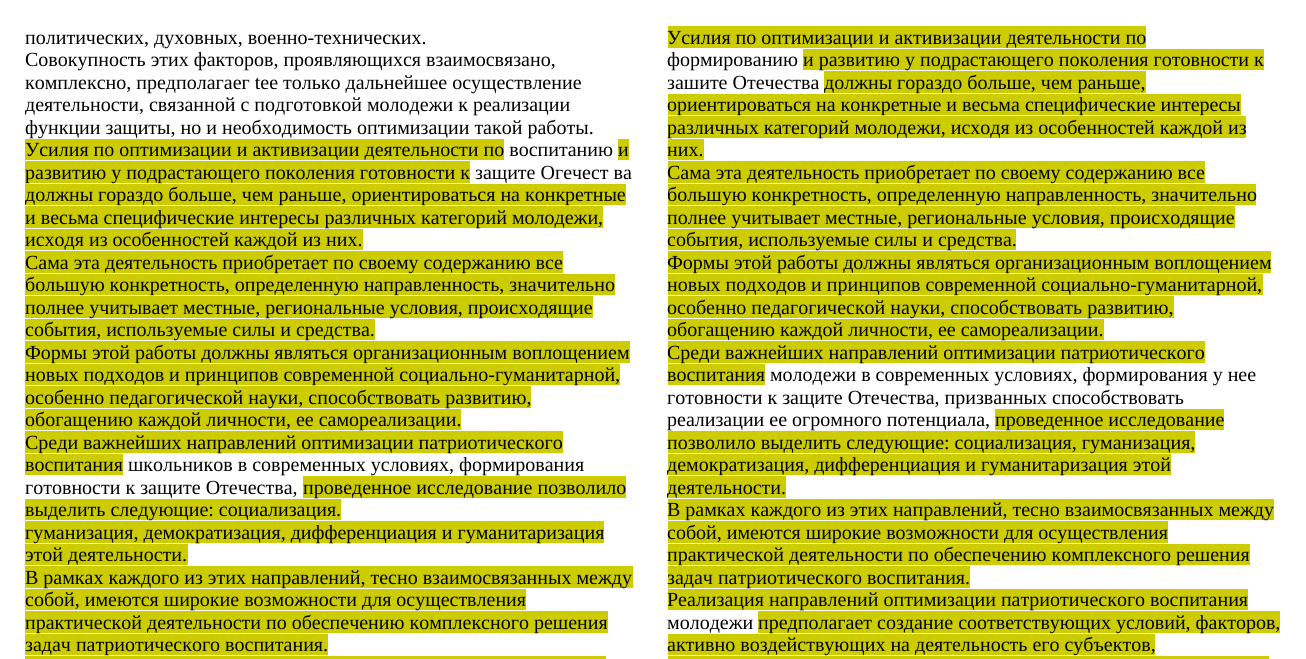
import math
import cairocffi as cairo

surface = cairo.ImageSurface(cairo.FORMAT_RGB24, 1306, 659)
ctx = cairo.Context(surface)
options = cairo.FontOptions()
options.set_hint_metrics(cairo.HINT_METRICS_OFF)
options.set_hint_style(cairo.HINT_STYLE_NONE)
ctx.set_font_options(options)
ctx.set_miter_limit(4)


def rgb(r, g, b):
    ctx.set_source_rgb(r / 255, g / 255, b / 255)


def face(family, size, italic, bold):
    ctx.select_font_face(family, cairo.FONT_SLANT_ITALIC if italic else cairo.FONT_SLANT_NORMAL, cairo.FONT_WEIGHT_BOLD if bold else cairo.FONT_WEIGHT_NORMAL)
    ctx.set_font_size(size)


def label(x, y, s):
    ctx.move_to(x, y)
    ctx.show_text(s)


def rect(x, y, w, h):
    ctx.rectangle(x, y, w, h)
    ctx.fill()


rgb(255, 255, 255)
ctx.paint()
face('Liberation Serif', 20, 0, 0)
rgb(0, 0, 0)
label(25, 44, 'политических, духовных, военно-технических.')
label(25, 66, 'Совокупность этих факторов, проявляющихся взаимосвязано,')
label(25, 89, 'комплексно, предполагаег tee только дальнейшее осуществление')
label(25, 111, 'деятельности, связанной с подготовкой молодежи к реализации')
label(25, 134, 'функции защиты, но и необходимость оптимизации такой работы.')
rgb(204, 204, 0)
rect(25, 139, 479, 21)
rgb(0, 0, 0)
label(25, 156, 'Усилия по оптимизации и активизации деятельности по воспитанию')
rgb(204, 204, 0)
rect(618, 139, 11, 21)
rgb(0, 0, 0)
label(618, 156, 'и')
rgb(204, 204, 0)
rect(25, 161, 445, 22)
rgb(0, 0, 0)
label(25, 179, 'развитию у подрастающего поколения готовности к защите Огечест ва')
rgb(204, 204, 0)
rect(25, 184, 601, 21)
rgb(0, 0, 0)
label(25, 201, 'должны гораздо больше, чем раньше, ориентироваться на конкретные')
rgb(204, 204, 0)
rect(25, 206, 578, 22)
rgb(0, 0, 0)
label(25, 224, 'и весьма специфические интересы различных категорий молодежи,')
rgb(204, 204, 0)
rect(25, 229, 338, 21)
rgb(0, 0, 0)
label(25, 246, 'исходя из особенностей каждой из них.')
rgb(204, 204, 0)
rect(25, 251, 538, 22)
rgb(0, 0, 0)
label(25, 269, 'Сама эта деятельность приобретает по своему содержанию все')
rgb(204, 204, 0)
rect(25, 274, 590, 21)
rgb(0, 0, 0)
label(25, 291, 'большую конкретность, определенную направленность, значительно')
rgb(204, 204, 0)
rect(25, 296, 568, 22)
rgb(0, 0, 0)
label(25, 314, 'полнее учитывает местные, региональные условия, происходящие')
rgb(204, 204, 0)
rect(25, 319, 350, 21)
rgb(0, 0, 0)
label(25, 336, 'события, используемые силы и средства.')
rgb(204, 204, 0)
rect(25, 341, 605, 22)
rgb(0, 0, 0)
label(25, 359, 'Формы этой работы должны являться организационным воплощением')
rgb(204, 204, 0)
rect(25, 364, 595, 21)
rgb(0, 0, 0)
label(25, 381, 'новых подходов и принципов современной социально-гуманитарной,')
rgb(204, 204, 0)
rect(25, 386, 506, 22)
rgb(0, 0, 0)
label(25, 404, 'особенно педагогической науки, способствовать развитию,')
rgb(204, 204, 0)
rect(25, 409, 436, 21)
rgb(0, 0, 0)
label(25, 426, 'обогащению каждой личности, ее самореализации.')
rgb(204, 204, 0)
rect(25, 431, 538, 22)
rgb(0, 0, 0)
label(25, 449, 'Среди важнейших направлений оптимизации патриотического')
rgb(204, 204, 0)
rect(25, 454, 98, 21)
rgb(0, 0, 0)
label(25, 471, 'воспитания школьников в современных условиях, формирования')
label(25, 494, 'готовности к защите Отечества,')
rgb(204, 204, 0)
rect(303, 476, 323, 22)
rgb(0, 0, 0)
label(303, 494, 'проведенное исследование позволило')
rgb(204, 204, 0)
rect(25, 499, 316, 21)
rgb(0, 0, 0)
label(25, 516, 'выделить следующие: социализация.')
rgb(204, 204, 0)
rect(25, 521, 579, 22)
rgb(0, 0, 0)
label(25, 539, 'гуманизация, демократизация, дифференциация и гуманитаризация')
rgb(204, 204, 0)
rect(25, 544, 163, 21)
rgb(0, 0, 0)
label(25, 561, 'этой деятельности.')
rgb(204, 204, 0)
rect(25, 566, 608, 22)
rgb(0, 0, 0)
label(25, 584, 'В рамках каждого из этих направлений, тесно взаимосвязанных между')
rgb(204, 204, 0)
rect(25, 589, 501, 21)
rgb(0, 0, 0)
label(25, 606, 'собой, имеются широкие возможности для осуществления')
rgb(204, 204, 0)
rect(25, 611, 583, 22)
rgb(0, 0, 0)
label(25, 629, 'практической деятельности по обеспечению комплексного решения')
rgb(204, 204, 0)
rect(25, 634, 303, 21)
rgb(0, 0, 0)
label(25, 651, 'задач патриотического воспитания.')
rgb(204, 204, 0)
rect(25, 656, 581, 3)
rect(668, 26, 478, 22)
rgb(0, 0, 0)
label(667, 44, 'Усилия по оптимизации и активизации деятельности по')
label(667, 66, 'формированию')
rgb(204, 204, 0)
rect(803, 49, 461, 21)
rgb(0, 0, 0)
label(803, 66, 'и развитию у подрастающего поколения готовности к')
label(667, 89, 'зашите Отечества')
rgb(204, 204, 0)
rect(824, 71, 322, 22)
rgb(0, 0, 0)
label(824, 89, 'должны гораздо больше, чем раньше,')
rgb(204, 204, 0)
rect(668, 94, 573, 21)
rgb(0, 0, 0)
label(667, 111, 'ориентироваться на конкретные и весьма специфические интересы')
rgb(204, 204, 0)
rect(668, 116, 578, 22)
rgb(0, 0, 0)
label(667, 134, 'различных категорий молодежи, исходя из особенностей каждой из')
rgb(204, 204, 0)
rect(668, 139, 36, 21)
rgb(0, 0, 0)
label(667, 156, 'них.')
rgb(204, 204, 0)
rect(668, 161, 537, 22)
rgb(0, 0, 0)
label(667, 179, 'Сама эта деятельность приобретает по своему содержанию все')
rgb(204, 204, 0)
rect(668, 184, 588, 21)
rgb(0, 0, 0)
label(667, 201, 'большую конкретность, определенную направленность, значительно')
rgb(204, 204, 0)
rect(668, 206, 567, 22)
rgb(0, 0, 0)
label(667, 224, 'полнее учитывает местные, региональные условия, происходящие')
rgb(204, 204, 0)
rect(668, 229, 348, 21)
rgb(0, 0, 0)
label(667, 246, 'события, используемые силы и средства.')
rgb(204, 204, 0)
rect(668, 251, 603, 22)
rgb(0, 0, 0)
label(667, 269, 'Формы этой работы должны являться организационным воплощением')
rgb(204, 204, 0)
rect(668, 274, 595, 21)
rgb(0, 0, 0)
label(667, 291, 'новых подходов и принципов современной социально-гуманитарной,')
rgb(204, 204, 0)
rect(668, 296, 506, 22)
rgb(0, 0, 0)
label(667, 314, 'особенно педагогической науки, способствовать развитию,')
rgb(204, 204, 0)
rect(668, 319, 436, 21)
rgb(0, 0, 0)
label(667, 336, 'обогащению каждой личности, ее самореализации.')
rgb(204, 204, 0)
rect(668, 341, 537, 22)
rgb(0, 0, 0)
label(667, 359, 'Среди важнейших направлений оптимизации патриотического')
rgb(204, 204, 0)
rect(668, 364, 97, 21)
rgb(0, 0, 0)
label(667, 381, 'воспитания молодежи в современных условиях, формирования у нее')
label(667, 404, 'готовности к защите Отечества, призванных способствовать')
label(667, 426, 'реализации ее огромного потенциала,')
rgb(204, 204, 0)
rect(995, 409, 229, 21)
rgb(0, 0, 0)
label(995, 426, 'проведенное исследование')
rgb(204, 204, 0)
rect(668, 431, 527, 22)
rgb(0, 0, 0)
label(667, 449, 'позволило выделить следующие: социализация, гуманизация,')
rgb(204, 204, 0)
rect(668, 454, 503, 21)
rgb(0, 0, 0)
label(667, 471, 'демократизация, дифференциация и гуманитаризация этой')
rgb(204, 204, 0)
rect(668, 476, 118, 22)
rgb(0, 0, 0)
label(667, 494, 'деятельности.')
rgb(204, 204, 0)
rect(668, 499, 606, 21)
rgb(0, 0, 0)
label(667, 516, 'В рамках каждого из этих направлений, тесно взаимосвязанных между')
rgb(204, 204, 0)
rect(668, 521, 500, 22)
rgb(0, 0, 0)
label(667, 539, 'собой, имеются широкие возможности для осуществления')
rgb(204, 204, 0)
rect(668, 544, 582, 21)
rgb(0, 0, 0)
label(667, 561, 'практической деятельности по обеспечению комплексного решения')
rgb(204, 204, 0)
rect(668, 566, 302, 22)
rgb(0, 0, 0)
label(667, 584, 'задач патриотического воспитания.')
rgb(204, 204, 0)
rect(668, 589, 580, 21)
rgb(0, 0, 0)
label(667, 606, 'Реализация направлений оптимизации патриотического воспитания')
label(667, 629, 'молодежи')
rgb(204, 204, 0)
rect(758, 611, 522, 22)
rgb(0, 0, 0)
label(758, 629, 'предполагает создание соответствующих условий, факторов,')
rgb(204, 204, 0)
rect(668, 634, 487, 21)
rgb(0, 0, 0)
label(667, 651, 'активно воздействующих на деятельность его субъектов,')
rgb(204, 204, 0)
rect(668, 656, 601, 3)
surface.write_to_png('render.png')
